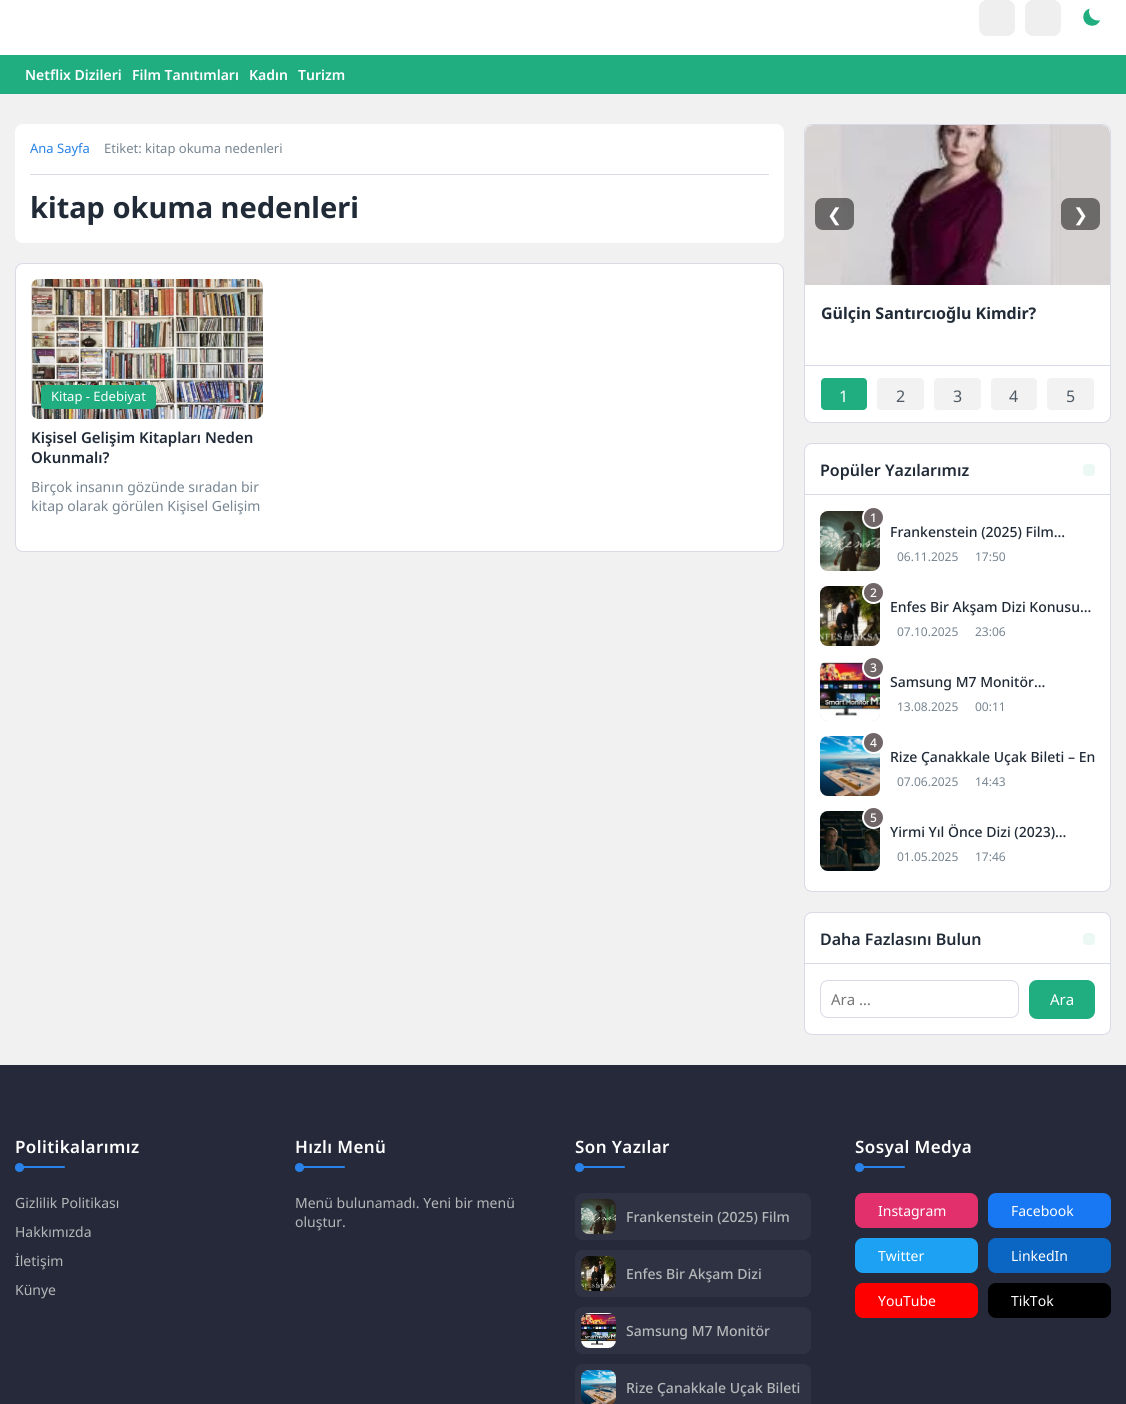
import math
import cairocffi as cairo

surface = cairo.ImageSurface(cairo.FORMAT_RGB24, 1126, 1404)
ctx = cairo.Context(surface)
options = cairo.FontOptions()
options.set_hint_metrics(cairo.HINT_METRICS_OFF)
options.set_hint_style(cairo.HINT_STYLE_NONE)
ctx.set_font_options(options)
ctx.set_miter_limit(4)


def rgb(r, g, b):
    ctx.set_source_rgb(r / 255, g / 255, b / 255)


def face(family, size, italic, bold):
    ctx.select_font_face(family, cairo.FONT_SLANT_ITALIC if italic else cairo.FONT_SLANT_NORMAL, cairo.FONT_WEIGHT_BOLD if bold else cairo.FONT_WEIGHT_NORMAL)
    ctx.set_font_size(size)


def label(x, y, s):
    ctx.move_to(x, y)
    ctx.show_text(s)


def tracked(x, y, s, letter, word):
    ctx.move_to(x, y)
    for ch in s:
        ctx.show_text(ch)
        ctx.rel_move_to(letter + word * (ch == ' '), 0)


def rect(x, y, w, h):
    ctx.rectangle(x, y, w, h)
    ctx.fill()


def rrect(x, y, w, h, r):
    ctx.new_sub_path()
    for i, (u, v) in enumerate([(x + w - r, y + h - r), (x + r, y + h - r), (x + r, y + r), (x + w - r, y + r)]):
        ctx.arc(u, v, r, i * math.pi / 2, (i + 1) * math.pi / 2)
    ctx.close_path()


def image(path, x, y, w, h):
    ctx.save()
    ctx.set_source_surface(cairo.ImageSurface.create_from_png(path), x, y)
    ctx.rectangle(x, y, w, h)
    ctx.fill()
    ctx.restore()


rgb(241, 241, 241)
ctx.paint()
rgb(255, 255, 255)
rect(0, 0, 1126, 55)
rgb(239, 239, 239)
rrect(979, 0, 36, 36, 8)
ctx.fill()
rrect(1025, 0, 36, 36, 8)
ctx.fill()
image('image0.png', 1083, 8, 18, 18)
rgb(32, 174, 128)
rect(0, 55, 1126, 39)
face('Noto Sans SemiBold', 14, 0, 0)
rgb(255, 255, 255)
label(25, 80, 'Netflix Dizileri')
label(132, 80, 'Film Tanıtımları')
label(249, 80, 'Kadın')
label(298, 80, 'Turizm')
rrect(15, 124, 769, 119, 8)
ctx.fill()
rgb(217, 218, 232)
rect(30, 174, 739, 1)
face('Noto Sans', 13, 0, 0)
rgb(40, 130, 231)
label(30, 153, 'Ana Sayfa')
rgb(119, 133, 145)
label(104, 153, 'Etiket: kitap okuma nedenleri')
face('Noto Sans', 29, 0, 1)
rgb(33, 43, 55)
label(30, 218, 'kitap okuma nedenleri')
rgb(255, 255, 255)
rrect(15.5, 263.5, 768, 288, 7.5)
ctx.fill_preserve()
rgb(217, 218, 232)
ctx.set_line_width(1)
ctx.stroke()
image('image1.png', 31, 279, 232, 140)
rgb(32, 174, 128)
rrect(41, 385, 115, 24, 4)
ctx.fill()
face('Noto Sans', 13, 0, 0)
rgb(255, 255, 255)
label(51, 401, 'Kitap - Edebiyat')
face('Noto Sans SemiBold', 15, 0, 0)
rgb(33, 43, 55)
label(31, 443, 'Kişisel Gelişim Kitapları Neden')
label(31, 463, 'Okunmalı?')
face('Noto Sans', 14, 0, 0)
rgb(119, 133, 145)
label(31, 492, 'Birçok insanın gözünde sıradan bir')
label(31, 511, 'kitap olarak görülen Kişisel Gelişim')
rrect(804.5, 124.5, 306, 298, 7.5)
rgb(217, 218, 232)
ctx.stroke()
rgb(255, 255, 255)
rrect(805, 125, 305, 297, 8)
ctx.fill()
image('image2.png', 805, 125, 305, 160)
ctx.set_source_rgba(0, 0, 0, 0.5)
rrect(815, 198, 39, 32, 8)
ctx.fill()
face('DejaVu Sans', 18, 0, 0)
rgb(255, 255, 255)
label(827, 221, '❮')
ctx.set_source_rgba(0, 0, 0, 0.5)
rrect(1061, 198, 39, 32, 8)
ctx.fill()
rgb(255, 255, 255)
label(1073, 221, '❯')
face('Noto Sans', 16, 0, 1)
rgb(33, 43, 55)
label(821, 319, 'Gülçin Santırcıoğlu Kimdir?')
rgb(255, 255, 255)
ctx.new_path()
ctx.move_to(805, 365)
ctx.line_to(1110, 365)
ctx.line_to(1110, 414)
ctx.curve_to(1110, 418.5, 1106.5, 422, 1102, 422)
ctx.line_to(813, 422)
ctx.curve_to(808.5, 422, 805, 418.5, 805, 414)
ctx.close_path()
ctx.fill()
rgb(217, 218, 232)
rect(805, 365, 305, 1)
rgb(32, 174, 128)
rrect(821, 378, 46, 32, 4)
ctx.fill()
face('Noto Sans', 16, 0, 0)
rgb(255, 255, 255)
label(839, 402, '1')
rgb(242, 242, 242)
rrect(877, 378, 47, 32, 4)
ctx.fill()
rgb(78, 89, 99)
label(896, 402, '2')
rgb(242, 242, 242)
rrect(934, 378, 47, 32, 4)
ctx.fill()
rgb(78, 89, 99)
label(953, 402, '3')
rgb(242, 242, 242)
rrect(991, 378, 46, 32, 4)
ctx.fill()
rgb(78, 89, 99)
label(1009, 402, '4')
rgb(242, 242, 242)
rrect(1047, 378, 47, 32, 4)
ctx.fill()
rgb(78, 89, 99)
label(1066, 402, '5')
rgb(255, 255, 255)
rrect(804.5, 443.5, 306, 448, 7.5)
ctx.fill_preserve()
rgb(217, 218, 232)
ctx.stroke()
rect(805, 494, 305, 1)
face('Noto Sans SemiBold', 16, 0, 0)
rgb(33, 43, 55)
label(820, 476, 'Popüler Yazılarımız')
rgb(235, 248, 243)
rrect(1083, 464, 12, 12, 4)
ctx.fill()
gradient = cairo.LinearGradient(850, 601, 730, 481)
gradient.add_color_stop_rgba(0.42, 0.867, 0.867, 0.867, 1)
gradient.add_color_stop_rgba(0.5, 1, 1, 1, 1)
gradient.add_color_stop_rgba(0.58, 0.867, 0.867, 0.867, 1)
ctx.set_source(gradient)
rrect(820, 511, 60, 60, 8)
ctx.fill()
image('image3.png', 820, 511, 60, 60)
rgb(112, 102, 103)
ctx.arc(873.5, 517.5, 10.5, 0, 2 * math.pi)
ctx.fill_preserve()
rgb(255, 255, 255)
ctx.set_line_width(2)
ctx.stroke()
face('Noto Sans Medium', 12, 0, 0)
label(870, 522, '1')
face('Noto Sans Medium', 14, 0, 0)
rgb(33, 43, 55)
label(890, 537, 'Frankenstein (2025) Film…')
face('Noto Sans', 12, 0, 0)
rgb(119, 133, 145)
label(897, 561, '06.11.2025')
label(975, 561, '17:50')
gradient = cairo.LinearGradient(850, 676, 730, 556)
gradient.add_color_stop_rgba(0.42, 0.867, 0.867, 0.867, 1)
gradient.add_color_stop_rgba(0.5, 1, 1, 1, 1)
gradient.add_color_stop_rgba(0.58, 0.867, 0.867, 0.867, 1)
ctx.set_source(gradient)
rrect(820, 586, 60, 60, 8)
ctx.fill()
image('image4.png', 820, 586, 60, 60)
rgb(112, 102, 103)
ctx.arc(873.5, 592.5, 10.5, 0, 2 * math.pi)
ctx.fill_preserve()
rgb(255, 255, 255)
ctx.stroke()
face('Noto Sans Medium', 12, 0, 0)
label(870, 597, '2')
face('Noto Sans Medium', 14, 0, 0)
rgb(33, 43, 55)
label(890, 612, 'Enfes Bir Akşam Dizi Konusu…')
face('Noto Sans', 12, 0, 0)
rgb(119, 133, 145)
label(897, 636, '07.10.2025')
label(975, 636, '23:06')
gradient = cairo.LinearGradient(850, 751, 730, 631)
gradient.add_color_stop_rgba(0.42, 0.867, 0.867, 0.867, 1)
gradient.add_color_stop_rgba(0.5, 1, 1, 1, 1)
gradient.add_color_stop_rgba(0.58, 0.867, 0.867, 0.867, 1)
ctx.set_source(gradient)
rrect(820, 661, 60, 60, 8)
ctx.fill()
image('image5.png', 820, 661, 60, 60)
rgb(112, 102, 103)
ctx.arc(873.5, 667.5, 10.5, 0, 2 * math.pi)
ctx.fill_preserve()
rgb(255, 255, 255)
ctx.stroke()
face('Noto Sans Medium', 12, 0, 0)
label(870, 672, '3')
face('Noto Sans Medium', 14, 0, 0)
rgb(33, 43, 55)
label(890, 687, 'Samsung M7 Monitör…')
face('Noto Sans', 12, 0, 0)
rgb(119, 133, 145)
label(897, 711, '13.08.2025')
label(975, 711, '00:11')
gradient = cairo.LinearGradient(850, 826, 730, 706)
gradient.add_color_stop_rgba(0.42, 0.867, 0.867, 0.867, 1)
gradient.add_color_stop_rgba(0.5, 1, 1, 1, 1)
gradient.add_color_stop_rgba(0.58, 0.867, 0.867, 0.867, 1)
ctx.set_source(gradient)
rrect(820, 736, 60, 60, 8)
ctx.fill()
image('image6.png', 820, 736, 60, 60)
rgb(112, 102, 103)
ctx.arc(873.5, 742.5, 10.5, 0, 2 * math.pi)
ctx.fill_preserve()
rgb(255, 255, 255)
ctx.stroke()
face('Noto Sans Medium', 12, 0, 0)
label(870, 747, '4')
face('Noto Sans Medium', 14, 0, 0)
rgb(33, 43, 55)
label(890, 762, 'Rize Çanakkale Uçak Bileti – En')
face('Noto Sans', 12, 0, 0)
rgb(119, 133, 145)
label(897, 786, '07.06.2025')
label(975, 786, '14:43')
gradient = cairo.LinearGradient(850, 901, 730, 781)
gradient.add_color_stop_rgba(0.42, 0.867, 0.867, 0.867, 1)
gradient.add_color_stop_rgba(0.5, 1, 1, 1, 1)
gradient.add_color_stop_rgba(0.58, 0.867, 0.867, 0.867, 1)
ctx.set_source(gradient)
rrect(820, 811, 60, 60, 8)
ctx.fill()
image('image7.png', 820, 811, 60, 60)
rgb(112, 102, 103)
ctx.arc(873.5, 817.5, 10.5, 0, 2 * math.pi)
ctx.fill_preserve()
rgb(255, 255, 255)
ctx.stroke()
face('Noto Sans Medium', 12, 0, 0)
label(870, 822, '5')
face('Noto Sans Medium', 14, 0, 0)
rgb(33, 43, 55)
label(890, 837, 'Yirmi Yıl Önce Dizi (2023)…')
face('Noto Sans', 12, 0, 0)
rgb(119, 133, 145)
label(897, 861, '01.05.2025')
label(975, 861, '17:46')
rgb(255, 255, 255)
rrect(804.5, 912.5, 306, 122, 7.5)
ctx.fill_preserve()
rgb(217, 218, 232)
ctx.set_line_width(1)
ctx.stroke()
rect(805, 963, 305, 1)
face('Noto Sans SemiBold', 16, 0, 0)
rgb(33, 43, 55)
label(820, 945, 'Daha Fazlasını Bulun')
rgb(235, 248, 243)
rrect(1083, 933, 12, 12, 4)
ctx.fill()
rrect(820.5, 980.5, 198, 37, 7.5)
rgb(217, 218, 232)
ctx.stroke()
face('Noto Sans', 15, 0, 0)
rgb(117, 117, 117)
label(831, 1005, 'Ara …')
rgb(32, 174, 128)
rrect(1029, 980, 66, 39, 8)
ctx.fill()
rgb(255, 255, 255)
label(1050, 1005, 'Ara')
rgb(37, 41, 57)
rect(0, 1065, 1126, 339)
face('Noto Sans SemiBold', 17, 0, 0)
rgb(255, 255, 255)
tracked(15, 1153, 'Politikalarımız', 0.4, 0)
rgb(40, 130, 231)
rrect(15, 1166, 50, 2, 1)
ctx.fill()
ctx.arc(19.5, 1167.5, 4.5, 0, 2 * math.pi)
ctx.fill()
face('Noto Sans', 14, 0, 0)
rgb(181, 184, 185)
label(15, 1208, 'Gizlilik Politikası')
label(15, 1237, 'Hakkımızda')
label(15, 1266, 'İletişim')
label(15, 1295, 'Künye')
face('Noto Sans SemiBold', 17, 0, 0)
rgb(255, 255, 255)
tracked(295, 1153, 'Hızlı Menü', 0.4, 0)
rgb(40, 130, 231)
rrect(295, 1166, 50, 2, 1)
ctx.fill()
ctx.arc(299.5, 1167.5, 4.5, 0, 2 * math.pi)
ctx.fill()
face('Noto Sans', 14, 0, 0)
rgb(181, 184, 185)
label(295, 1208, 'Menü bulunamadı. Yeni bir menü')
label(295, 1227, 'oluştur.')
face('Noto Sans SemiBold', 17, 0, 0)
rgb(255, 255, 255)
tracked(575, 1153, 'Son Yazılar', 0.4, 0)
rgb(40, 130, 231)
rrect(575, 1166, 50, 2, 1)
ctx.fill()
ctx.arc(579.5, 1167.5, 4.5, 0, 2 * math.pi)
ctx.fill()
rgb(46, 50, 67)
rrect(575, 1193, 236, 47, 8)
ctx.fill()
image('image8.png', 581, 1199, 35, 35)
face('Noto Sans Medium', 14, 0, 0)
rgb(181, 184, 185)
label(626, 1222, 'Frankenstein (2025) Film')
rgb(46, 50, 67)
rrect(575, 1250, 236, 47, 8)
ctx.fill()
image('image9.png', 581, 1256, 35, 35)
rgb(181, 184, 185)
label(626, 1279, 'Enfes Bir Akşam Dizi')
rgb(46, 50, 67)
rrect(575, 1307, 236, 47, 8)
ctx.fill()
image('image10.png', 581, 1313, 35, 35)
rgb(181, 184, 185)
label(626, 1336, 'Samsung M7 Monitör')
rgb(46, 50, 67)
rrect(575, 1364, 236, 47, 8)
ctx.fill()
image('image11.png', 581, 1370, 35, 34)
rgb(181, 184, 185)
label(626, 1393, 'Rize Çanakkale Uçak Bileti')
face('Noto Sans SemiBold', 17, 0, 0)
rgb(255, 255, 255)
tracked(855, 1153, 'Sosyal Medya', 0.4, 0)
rgb(40, 130, 231)
rrect(855, 1166, 50, 2, 1)
ctx.fill()
ctx.arc(859.5, 1167.5, 4.5, 0, 2 * math.pi)
ctx.fill()
rgb(225, 48, 108)
rrect(855, 1193, 123, 35, 8)
ctx.fill()
face('Noto Sans', 14, 0, 0)
rgb(255, 255, 255)
label(878, 1216, 'Instagram')
rgb(24, 119, 242)
rrect(988, 1193, 123, 35, 8)
ctx.fill()
rgb(255, 255, 255)
label(1011, 1216, 'Facebook')
rgb(29, 161, 242)
rrect(855, 1238, 123, 35, 8)
ctx.fill()
rgb(255, 255, 255)
label(878, 1261, 'Twitter')
rgb(10, 102, 194)
rrect(988, 1238, 123, 35, 8)
ctx.fill()
rgb(255, 255, 255)
label(1011, 1261, 'LinkedIn')
rgb(255, 0, 0)
rrect(855, 1283, 123, 35, 8)
ctx.fill()
rgb(255, 255, 255)
label(878, 1306, 'YouTube')
rgb(0, 0, 0)
rrect(988, 1283, 123, 35, 8)
ctx.fill()
rgb(255, 255, 255)
label(1011, 1306, 'TikTok')
surface.write_to_png('render.png')
